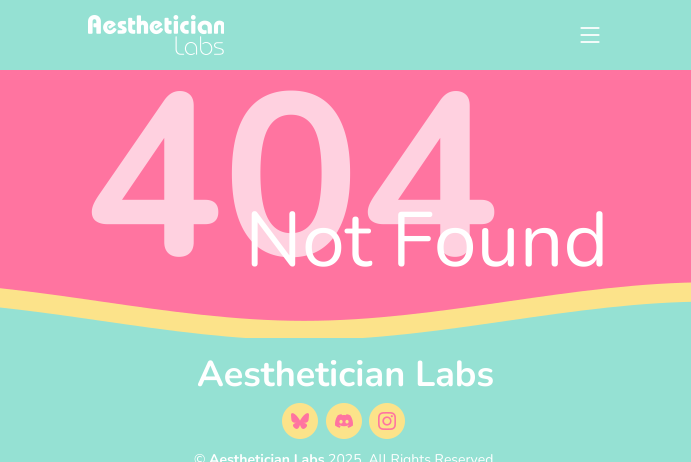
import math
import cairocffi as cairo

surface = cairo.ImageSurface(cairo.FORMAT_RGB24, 691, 462)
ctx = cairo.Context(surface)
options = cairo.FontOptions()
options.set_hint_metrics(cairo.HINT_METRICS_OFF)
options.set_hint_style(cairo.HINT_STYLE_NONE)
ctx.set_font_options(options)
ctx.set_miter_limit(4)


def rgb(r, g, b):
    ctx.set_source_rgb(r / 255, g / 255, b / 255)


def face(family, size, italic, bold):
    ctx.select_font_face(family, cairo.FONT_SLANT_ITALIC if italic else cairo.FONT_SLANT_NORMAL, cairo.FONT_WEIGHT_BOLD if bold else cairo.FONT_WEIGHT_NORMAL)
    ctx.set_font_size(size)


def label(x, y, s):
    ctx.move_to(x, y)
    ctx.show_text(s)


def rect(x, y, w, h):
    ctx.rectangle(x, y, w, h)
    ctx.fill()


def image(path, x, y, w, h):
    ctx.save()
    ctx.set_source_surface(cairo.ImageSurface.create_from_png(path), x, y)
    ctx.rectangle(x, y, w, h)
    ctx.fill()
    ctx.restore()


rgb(255, 116, 160)
ctx.paint()
rgb(149, 225, 211)
rect(0, 0, 691, 70)
image('image0.png', 88, 15, 136, 40)
image('image1.png', 580, 27, 20, 16)
face('Nunito', 230, 0, 1)
rgb(255, 209, 224)
label(84, 255, '404')
face('Nunito', 77, 0, 0)
rgb(255, 255, 255)
label(245, 266, 'Not Found')
rgb(149, 225, 211)
rect(0, 338, 691, 124)
image('image2.png', 0, 282, 691, 56)
face('Nunito', 36, 0, 1)
rgb(255, 255, 255)
label(197, 386, 'Aesthetician Labs')
rgb(252, 227, 138)
ctx.new_path()
ctx.arc(300, 421, 18, 0, 2 * math.pi)
ctx.fill()
image('image3.png', 291, 413, 18, 16)
ctx.arc(344, 421, 18, 0, 2 * math.pi)
ctx.fill()
image('image4.png', 335, 414, 18, 14)
ctx.arc(387, 421, 18, 0, 2 * math.pi)
ctx.fill()
image('image5.png', 378, 412, 18, 18)
face('Nunito', 14, 0, 0)
rgb(255, 255, 255)
label(194, 464, '©')
face('Nunito', 14, 0, 1)
label(209, 464, 'Aesthetician Labs')
face('Nunito', 14, 0, 0)
label(328, 464, '2025. All Rights Reserved')
surface.write_to_png('render.png')
